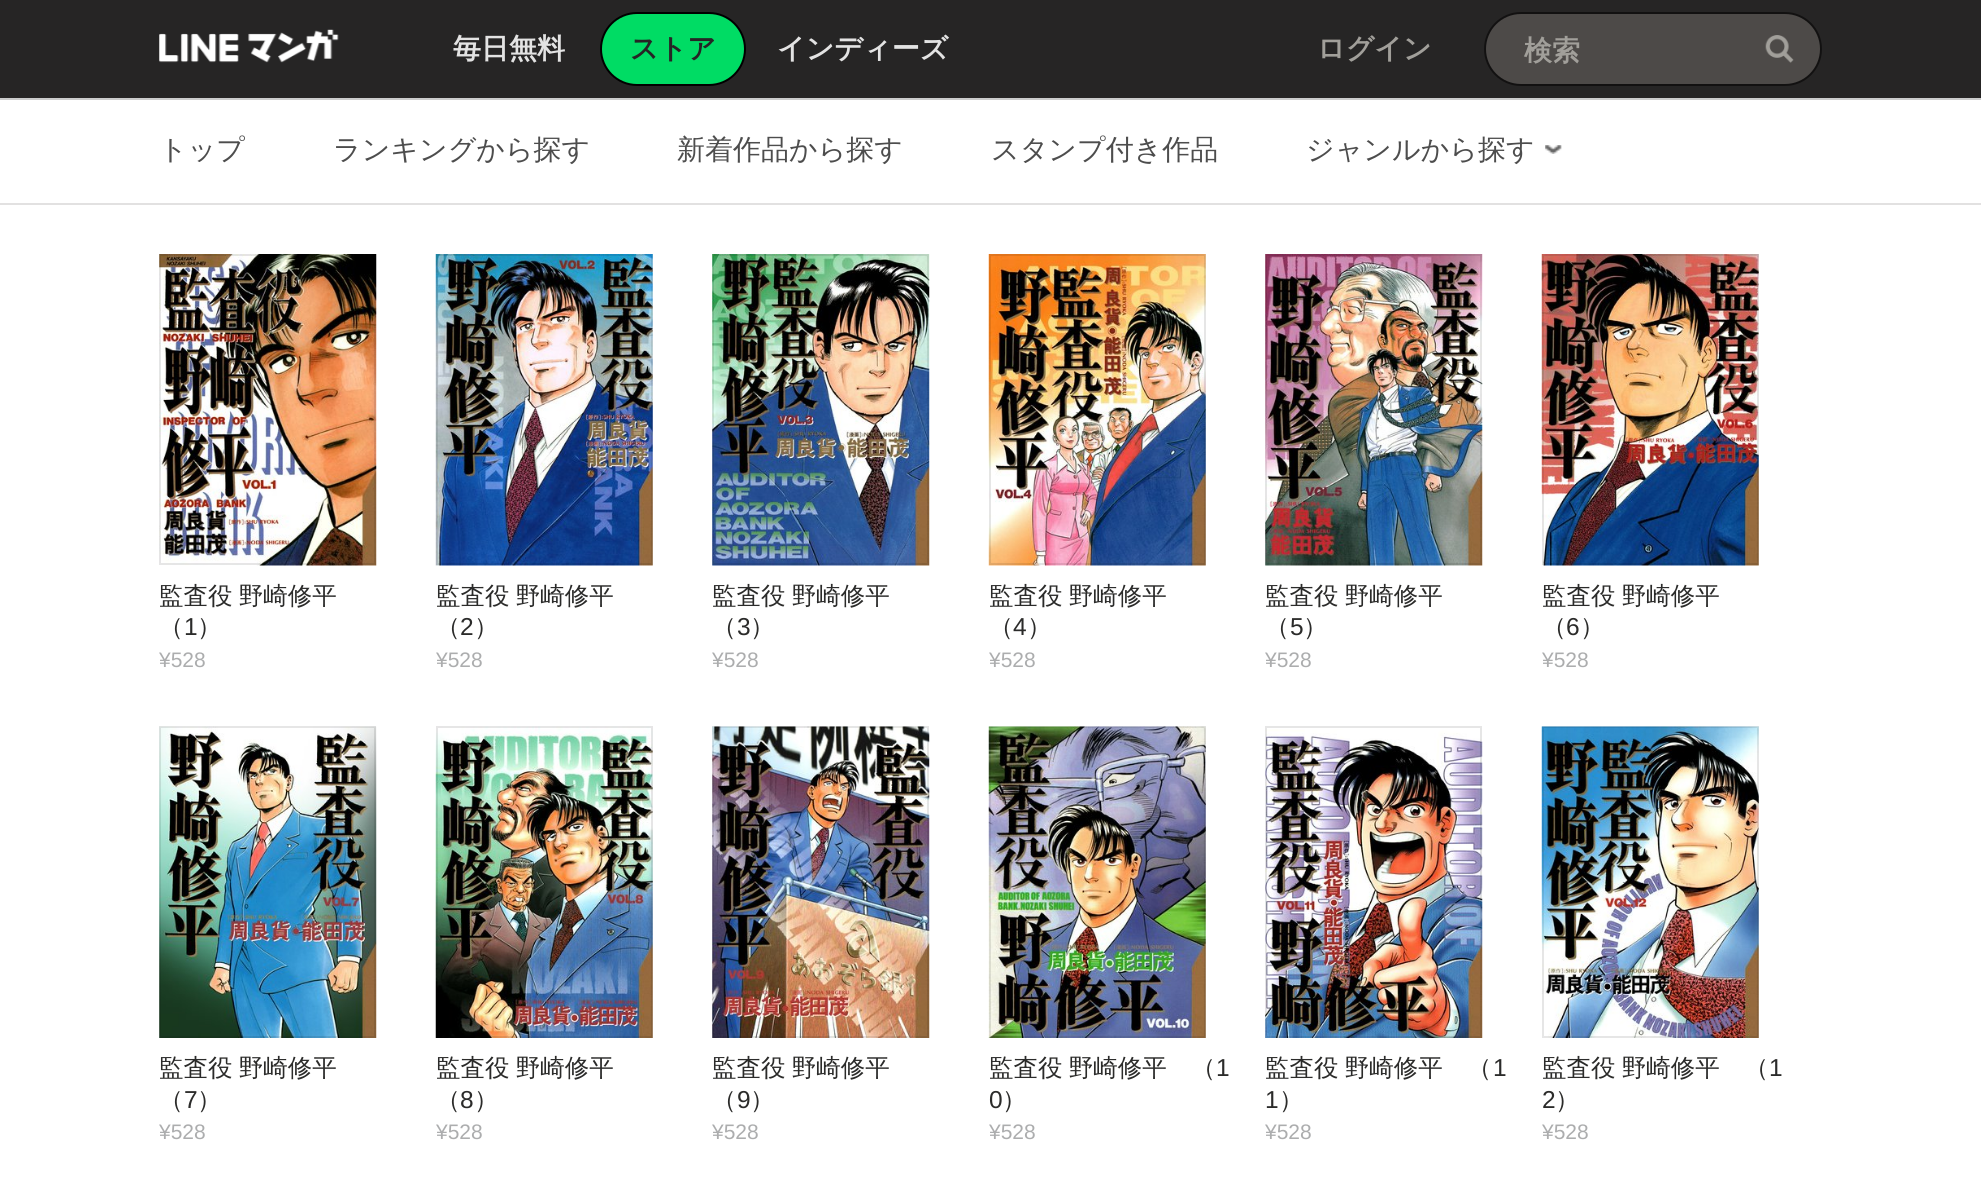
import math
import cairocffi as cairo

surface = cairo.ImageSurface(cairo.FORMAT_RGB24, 1981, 1200)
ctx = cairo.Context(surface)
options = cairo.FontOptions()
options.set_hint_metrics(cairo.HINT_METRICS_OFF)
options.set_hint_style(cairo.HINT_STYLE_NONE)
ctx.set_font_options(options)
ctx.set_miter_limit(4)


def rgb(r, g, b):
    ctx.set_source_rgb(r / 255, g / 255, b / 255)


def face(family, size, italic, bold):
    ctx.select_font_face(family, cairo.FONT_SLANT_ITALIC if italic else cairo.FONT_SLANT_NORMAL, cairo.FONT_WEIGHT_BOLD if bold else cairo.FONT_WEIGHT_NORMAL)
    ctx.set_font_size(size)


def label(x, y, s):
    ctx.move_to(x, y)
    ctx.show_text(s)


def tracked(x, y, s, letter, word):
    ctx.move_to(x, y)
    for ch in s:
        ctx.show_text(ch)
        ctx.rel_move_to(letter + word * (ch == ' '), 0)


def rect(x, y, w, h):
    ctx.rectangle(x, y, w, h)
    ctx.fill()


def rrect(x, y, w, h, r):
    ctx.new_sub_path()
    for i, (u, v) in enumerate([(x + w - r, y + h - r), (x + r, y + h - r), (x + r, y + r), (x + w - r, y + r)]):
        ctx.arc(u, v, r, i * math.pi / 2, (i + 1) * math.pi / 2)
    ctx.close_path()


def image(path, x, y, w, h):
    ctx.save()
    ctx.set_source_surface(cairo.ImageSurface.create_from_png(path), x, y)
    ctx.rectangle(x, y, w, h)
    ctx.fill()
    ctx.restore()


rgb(255, 255, 255)
ctx.paint()
rgb(38, 37, 37)
rect(0, 0, 1981, 98)
image('image0.png', 159, 29, 180, 34)
face('WenQuanYi Zen Hei', 28, 0, 1)
rgb(227, 227, 227)
label(453, 58, '毎日無料')
rgb(0, 220, 100)
rrect(601, 13, 144, 72, 36)
ctx.fill_preserve()
rgb(0, 0, 0)
ctx.stroke()
rgb(38, 37, 37)
label(630, 58, 'ストア')
rgb(227, 227, 227)
label(777, 58, 'インディーズ')
rgb(161, 159, 154)
label(1317, 58, 'ログイン')
rgb(77, 74, 72)
rrect(1485, 13, 336, 72, 36)
ctx.fill_preserve()
rgb(18, 17, 17)
ctx.stroke()
rgb(161, 159, 154)
label(1524, 60, '検索')
image('image1.png', 1765, 35, 29, 28)
rgb(204, 204, 204)
rect(0, 98, 1981, 2)
face('WenQuanYi Zen Hei Medium', 28, 0, 0)
rgb(77, 77, 77)
label(159, 159, 'トップ')
label(333, 159, 'ランキングから探す')
label(677, 159, '新着作品から探す')
label(991, 159, 'スタンプ付き作品')
label(1306, 159, 'ジャンルから探す')
image('image2.png', 1545, 145, 17, 9)
ctx.set_source_rgba(0.435, 0.42, 0.42, 0.2)
rect(0, 203, 1981, 2)
image('image3.png', 159, 254, 218, 312)
ctx.rectangle(160, 255, 215, 309)
ctx.set_source_rgba(0, 0, 0, 0.1)
ctx.stroke()
face('WenQuanYi Zen Hei Medium', 24.5, 0, 0)
rgb(43, 43, 42)
tracked(159, 604, '監査役 野崎修平', 0, -1)
label(159, 635, '（')
face('Liberation Sans', 24.5, 0, 0)
label(184, 635, '1')
face('WenQuanYi Zen Hei Medium', 24.5, 0, 0)
label(197, 635, '）')
face('Liberation Sans', 21, 0, 0)
rgb(172, 173, 174)
label(159, 667, '¥528')
image('image4.png', 435, 254, 218, 312)
ctx.rectangle(437, 255, 215, 309)
ctx.set_source_rgba(0, 0, 0, 0.1)
ctx.stroke()
face('WenQuanYi Zen Hei Medium', 24.5, 0, 0)
rgb(43, 43, 42)
tracked(436, 604, '監査役 野崎修平', 0, -1)
label(436, 635, '（')
face('Liberation Sans', 24.5, 0, 0)
label(460, 635, '2')
face('WenQuanYi Zen Hei Medium', 24.5, 0, 0)
label(474, 635, '）')
face('Liberation Sans', 21, 0, 0)
rgb(172, 173, 174)
label(436, 667, '¥528')
image('image5.png', 712, 254, 218, 312)
ctx.rectangle(713, 255, 215, 309)
ctx.set_source_rgba(0, 0, 0, 0.1)
ctx.stroke()
face('WenQuanYi Zen Hei Medium', 24.5, 0, 0)
rgb(43, 43, 42)
tracked(712, 604, '監査役 野崎修平', 0, -1)
label(712, 635, '（')
face('Liberation Sans', 24.5, 0, 0)
label(737, 635, '3')
face('WenQuanYi Zen Hei Medium', 24.5, 0, 0)
label(750, 635, '）')
face('Liberation Sans', 21, 0, 0)
rgb(172, 173, 174)
label(712, 667, '¥528')
image('image6.png', 988, 254, 218, 312)
ctx.rectangle(990, 255, 215, 309)
ctx.set_source_rgba(0, 0, 0, 0.1)
ctx.stroke()
face('WenQuanYi Zen Hei Medium', 24.5, 0, 0)
rgb(43, 43, 42)
tracked(989, 604, '監査役 野崎修平', 0, -1)
label(989, 635, '（')
face('Liberation Sans', 24.5, 0, 0)
label(1013, 635, '4')
face('WenQuanYi Zen Hei Medium', 24.5, 0, 0)
label(1027, 635, '）')
face('Liberation Sans', 21, 0, 0)
rgb(172, 173, 174)
label(989, 667, '¥528')
image('image7.png', 1265, 254, 218, 312)
ctx.rectangle(1266, 255, 215, 309)
ctx.set_source_rgba(0, 0, 0, 0.1)
ctx.stroke()
face('WenQuanYi Zen Hei Medium', 24.5, 0, 0)
rgb(43, 43, 42)
tracked(1265, 604, '監査役 野崎修平', 0, -1)
label(1265, 635, '（')
face('Liberation Sans', 24.5, 0, 0)
label(1290, 635, '5')
face('WenQuanYi Zen Hei Medium', 24.5, 0, 0)
label(1303, 635, '）')
face('Liberation Sans', 21, 0, 0)
rgb(172, 173, 174)
label(1265, 667, '¥528')
image('image8.png', 1541, 254, 218, 312)
ctx.rectangle(1543, 255, 215, 309)
ctx.set_source_rgba(0, 0, 0, 0.1)
ctx.stroke()
face('WenQuanYi Zen Hei Medium', 24.5, 0, 0)
rgb(43, 43, 42)
tracked(1542, 604, '監査役 野崎修平', 0, -1)
label(1542, 635, '（')
face('Liberation Sans', 24.5, 0, 0)
label(1566, 635, '6')
face('WenQuanYi Zen Hei Medium', 24.5, 0, 0)
label(1580, 635, '）')
face('Liberation Sans', 21, 0, 0)
rgb(172, 173, 174)
label(1542, 667, '¥528')
image('image9.png', 159, 726, 218, 312)
ctx.rectangle(160, 727, 215, 310)
ctx.set_source_rgba(0, 0, 0, 0.1)
ctx.stroke()
face('WenQuanYi Zen Hei Medium', 24.5, 0, 0)
rgb(43, 43, 42)
tracked(159, 1076, '監査役 野崎修平', 0, -1)
label(159, 1108, '（')
face('Liberation Sans', 24.5, 0, 0)
label(184, 1108, '7')
face('WenQuanYi Zen Hei Medium', 24.5, 0, 0)
label(197, 1108, '）')
face('Liberation Sans', 21, 0, 0)
rgb(172, 173, 174)
label(159, 1139, '¥528')
image('image10.png', 435, 726, 218, 312)
ctx.rectangle(437, 727, 215, 310)
ctx.set_source_rgba(0, 0, 0, 0.1)
ctx.stroke()
face('WenQuanYi Zen Hei Medium', 24.5, 0, 0)
rgb(43, 43, 42)
tracked(436, 1076, '監査役 野崎修平', 0, -1)
label(436, 1108, '（')
face('Liberation Sans', 24.5, 0, 0)
label(460, 1108, '8')
face('WenQuanYi Zen Hei Medium', 24.5, 0, 0)
label(474, 1108, '）')
face('Liberation Sans', 21, 0, 0)
rgb(172, 173, 174)
label(436, 1139, '¥528')
image('image11.png', 712, 726, 218, 312)
ctx.rectangle(713, 727, 215, 310)
ctx.set_source_rgba(0, 0, 0, 0.1)
ctx.stroke()
face('WenQuanYi Zen Hei Medium', 24.5, 0, 0)
rgb(43, 43, 42)
tracked(712, 1076, '監査役 野崎修平', 0, -1)
label(712, 1108, '（')
face('Liberation Sans', 24.5, 0, 0)
label(737, 1108, '9')
face('WenQuanYi Zen Hei Medium', 24.5, 0, 0)
label(750, 1108, '）')
face('Liberation Sans', 21, 0, 0)
rgb(172, 173, 174)
label(712, 1139, '¥528')
image('image12.png', 988, 726, 218, 312)
ctx.rectangle(990, 727, 215, 310)
ctx.set_source_rgba(0, 0, 0, 0.1)
ctx.stroke()
face('WenQuanYi Zen Hei Medium', 24.5, 0, 0)
rgb(43, 43, 42)
tracked(989, 1076, '監査役 野崎修平　（', 0, -1)
face('Liberation Sans', 24.5, 0, 0)
label(1216, 1076, '1')
label(989, 1108, '0')
face('WenQuanYi Zen Hei Medium', 24.5, 0, 0)
label(1002, 1108, '）')
face('Liberation Sans', 21, 0, 0)
rgb(172, 173, 174)
label(989, 1139, '¥528')
image('image13.png', 1265, 729, 218, 309)
ctx.rectangle(1266, 727, 215, 310)
ctx.set_source_rgba(0, 0, 0, 0.1)
ctx.stroke()
face('WenQuanYi Zen Hei Medium', 24.5, 0, 0)
rgb(43, 43, 42)
tracked(1265, 1076, '監査役 野崎修平　（', 0, -1)
face('Liberation Sans', 24.5, 0, 0)
label(1493, 1076, '1')
label(1265, 1108, '1')
face('WenQuanYi Zen Hei Medium', 24.5, 0, 0)
label(1279, 1108, '）')
face('Liberation Sans', 21, 0, 0)
rgb(172, 173, 174)
label(1265, 1139, '¥528')
image('image14.png', 1541, 726, 218, 312)
ctx.rectangle(1543, 727, 215, 310)
ctx.set_source_rgba(0, 0, 0, 0.1)
ctx.stroke()
face('WenQuanYi Zen Hei Medium', 24.5, 0, 0)
rgb(43, 43, 42)
tracked(1542, 1076, '監査役 野崎修平　（', 0, -1)
face('Liberation Sans', 24.5, 0, 0)
label(1769, 1076, '1')
label(1542, 1108, '2')
face('WenQuanYi Zen Hei Medium', 24.5, 0, 0)
label(1555, 1108, '）')
face('Liberation Sans', 21, 0, 0)
rgb(172, 173, 174)
label(1542, 1139, '¥528')
surface.write_to_png('render.png')
